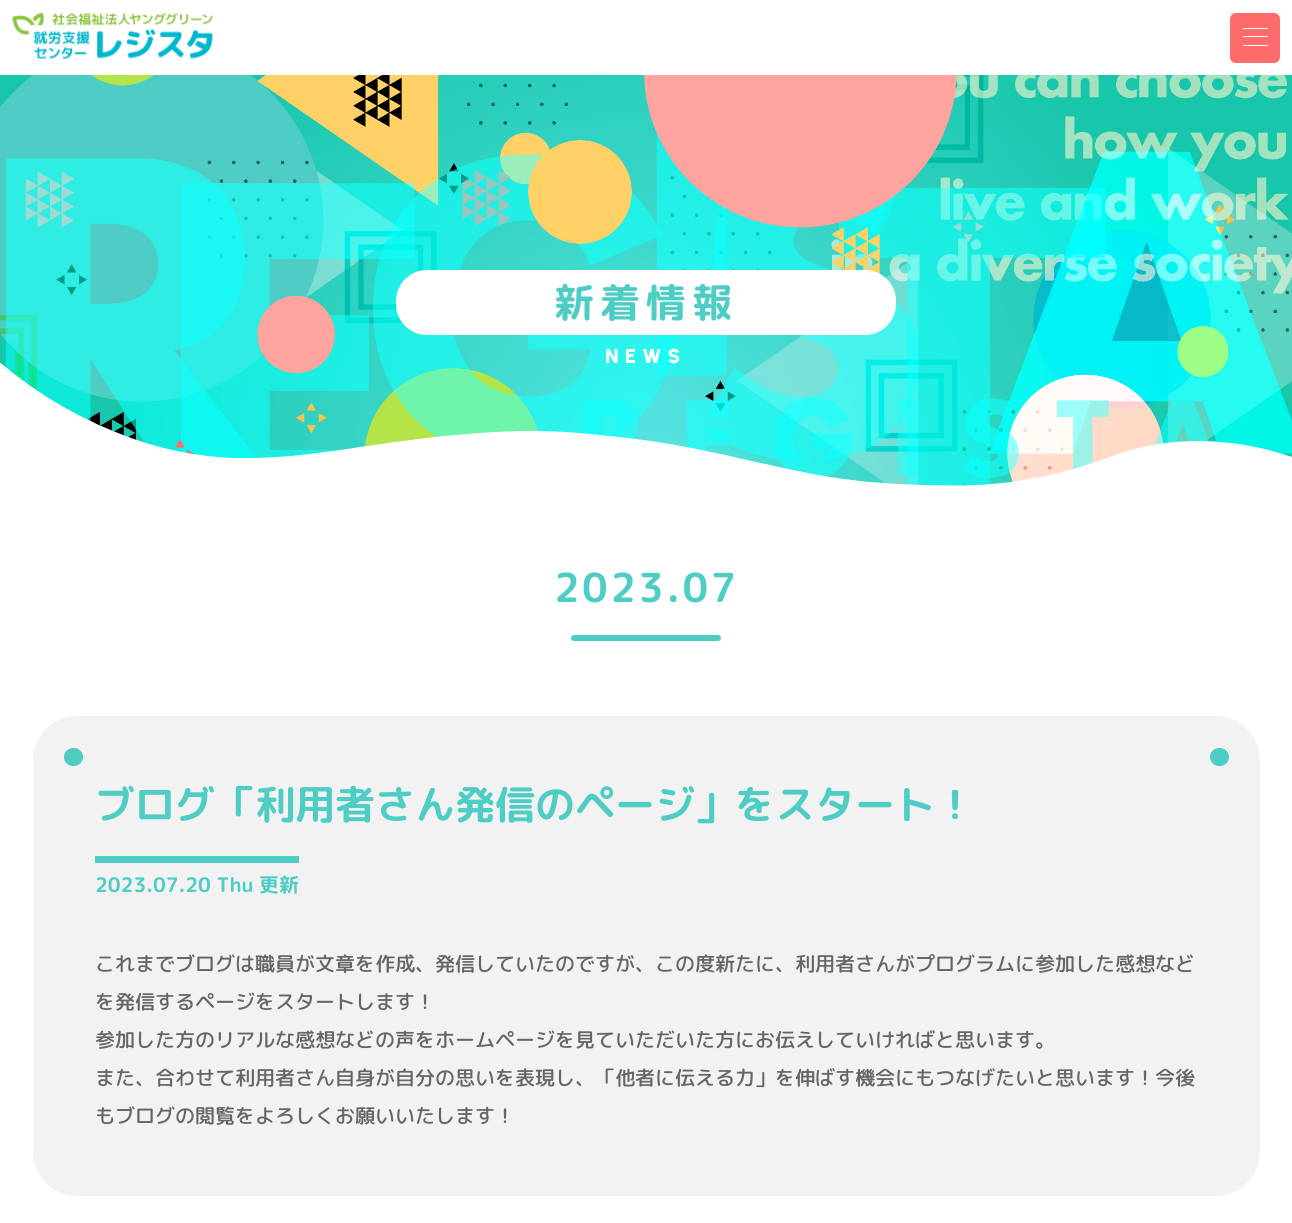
import math
import cairocffi as cairo

surface = cairo.ImageSurface(cairo.FORMAT_RGB24, 1292, 1223)
ctx = cairo.Context(surface)
options = cairo.FontOptions()
options.set_hint_metrics(cairo.HINT_METRICS_OFF)
options.set_hint_style(cairo.HINT_STYLE_NONE)
ctx.set_font_options(options)
ctx.set_miter_limit(4)


def rgb(r, g, b):
    ctx.set_source_rgb(r / 255, g / 255, b / 255)


def face(family, size, italic, bold):
    ctx.select_font_face(family, cairo.FONT_SLANT_ITALIC if italic else cairo.FONT_SLANT_NORMAL, cairo.FONT_WEIGHT_BOLD if bold else cairo.FONT_WEIGHT_NORMAL)
    ctx.set_font_size(size)


def label(x, y, s):
    ctx.move_to(x, y)
    ctx.show_text(s)


def tracked(x, y, s, letter, word):
    ctx.move_to(x, y)
    for ch in s:
        ctx.show_text(ch)
        ctx.rel_move_to(letter + word * (ch == ' '), 0)


def rect(x, y, w, h):
    ctx.rectangle(x, y, w, h)
    ctx.fill()


def rrect(x, y, w, h, r):
    ctx.new_sub_path()
    for i, (u, v) in enumerate([(x + w - r, y + h - r), (x + r, y + h - r), (x + r, y + r), (x + w - r, y + r)]):
        ctx.arc(u, v, r, i * math.pi / 2, (i + 1) * math.pi / 2)
    ctx.close_path()


def image(path, x, y, w, h):
    ctx.save()
    ctx.set_source_surface(cairo.ImageSurface.create_from_png(path), x, y)
    ctx.rectangle(x, y, w, h)
    ctx.fill()
    ctx.restore()


rgb(255, 255, 255)
ctx.paint()
image('image0.png', 12, 12, 201, 47)
rgb(255, 107, 107)
rrect(1230, 13, 50, 50, 6)
ctx.fill()
ctx.arc(1230.5, 13.5, 0.5, 0, 2 * math.pi)
ctx.fill()
rgb(255, 255, 255)
rect(1243, 28, 25, 1)
rect(1243, 36, 25, 1)
rect(1243, 45, 25, 1)
image('image1.png', 0, 75, 1292, 411)
rrect(396, 270, 500, 65, 31)
ctx.fill()
face('Rounded Mplus 1c Bold', 40, 0, 1)
rgb(78, 205, 196)
tracked(554, 317, '新着情報', 6, 0)
face('Urbanist Black', 20, 0, 0)
rgb(255, 255, 255)
tracked(605, 363, 'NEWS', 6, 0)
image('image2.png', 0, 363, 1292, 166)
face('Rounded Mplus 1c Bold', 40, 0, 1)
rgb(78, 205, 196)
tracked(554, 602, '2023.07', 2.5, 0)
rrect(571, 635, 150, 6, 3)
ctx.fill()
rgb(242, 242, 242)
rrect(33, 716, 1227, 480, 44)
ctx.fill()
rgb(78, 205, 196)
rrect(64, 748, 19, 18, 9)
ctx.fill()
rrect(1210, 748, 19, 18, 9)
ctx.fill()
label(95, 819, 'ブログ「利用者さん発信のページ」をスタート！')
rect(95, 856, 204, 7)
face('Rounded Mplus 1c Bold', 20, 0, 1)
label(95, 892, '2023.07.20 Thu 更新')
face('Rounded Mplus 1c Medium', 20, 0, 0)
rgb(102, 102, 102)
label(95, 971, 'これまでブログは職員が文章を作成、発信していたのですが、この度新たに、利用者さんがプログラムに参加した感想など')
label(95, 1009, 'を発信するページをスタートします！')
label(95, 1047, '参加した方のリアルな感想などの声をホームページを見ていただいた方にお伝えしていければと思います。')
label(95, 1085, 'また、合わせて利用者さん自身が自分の思いを表現し、「他者に伝える力」を伸ばす機会にもつなげたいと思います！今後')
label(95, 1123, 'もブログの閲覧をよろしくお願いいたします！')
surface.write_to_png('render.png')
